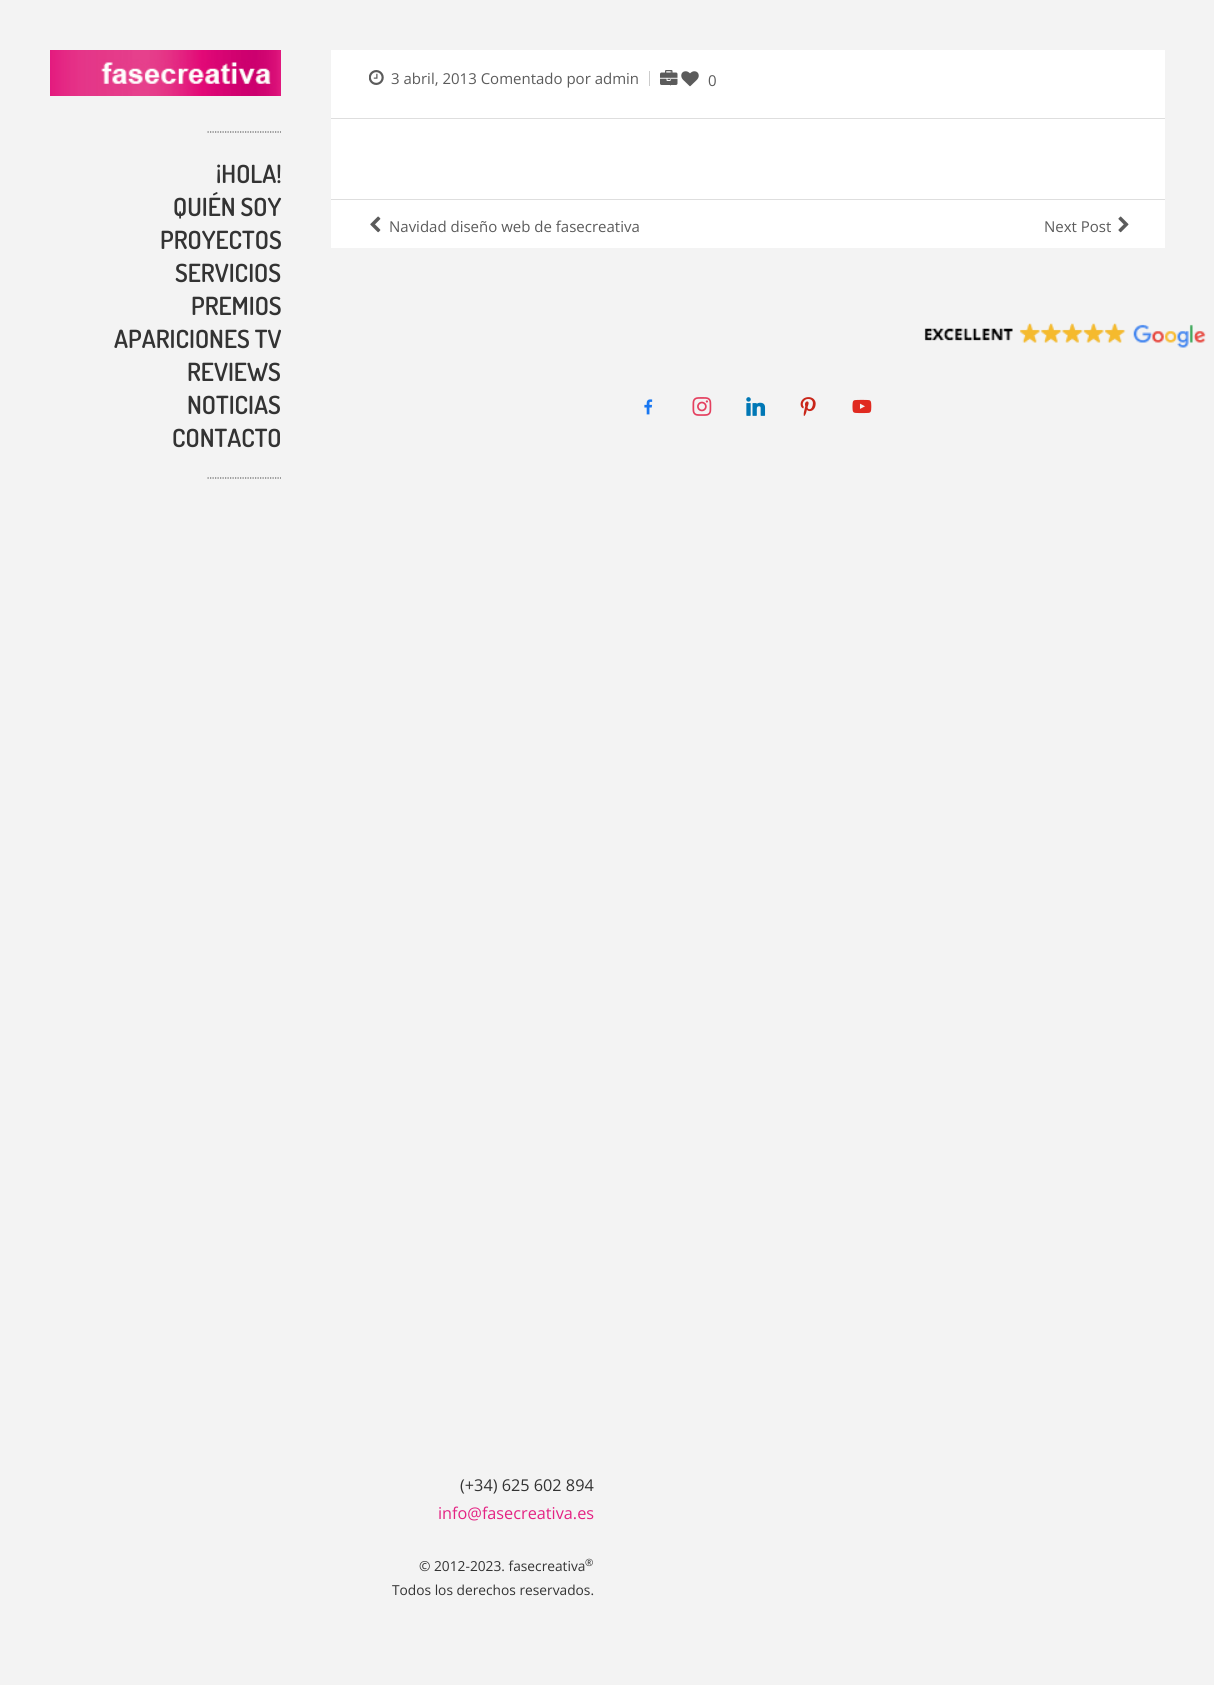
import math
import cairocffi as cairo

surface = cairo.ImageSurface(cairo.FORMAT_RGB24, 1214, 1685)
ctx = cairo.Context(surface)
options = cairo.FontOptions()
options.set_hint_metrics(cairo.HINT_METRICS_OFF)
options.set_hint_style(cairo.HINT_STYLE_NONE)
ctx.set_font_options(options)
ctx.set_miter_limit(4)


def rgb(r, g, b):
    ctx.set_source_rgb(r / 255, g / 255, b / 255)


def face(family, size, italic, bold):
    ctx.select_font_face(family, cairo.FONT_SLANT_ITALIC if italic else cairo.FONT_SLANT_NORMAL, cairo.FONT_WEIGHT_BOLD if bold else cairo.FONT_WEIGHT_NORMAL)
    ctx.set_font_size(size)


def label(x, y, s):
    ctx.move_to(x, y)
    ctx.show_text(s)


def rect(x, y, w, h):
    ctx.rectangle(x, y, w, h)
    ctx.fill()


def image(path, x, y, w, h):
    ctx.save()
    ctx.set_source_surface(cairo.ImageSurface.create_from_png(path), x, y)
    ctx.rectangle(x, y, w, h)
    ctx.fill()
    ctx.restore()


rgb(243, 243, 243)
ctx.paint()
image('image0.png', 50, 50, 231, 46)
ctx.new_path()
ctx.move_to(207.5, 132)
ctx.line_to(281, 132)
rgb(99, 99, 99)
ctx.set_line_width(1.2)
ctx.set_dash([1.25, 1.25])
ctx.stroke()
face('Dosis SemiBold', 25, 0, 0)
rgb(51, 51, 51)
label(216, 183, '¡HOLA!')
label(173, 216, 'QUIÉN SOY')
label(160, 249, 'PROYECTOS')
label(175, 282, 'SERVICIOS')
label(191, 315, 'PREMIOS')
label(114, 348, 'APARICIONES TV')
label(187, 381, 'REVIEWS')
label(187, 414, 'NOTICIAS')
label(172, 447, 'CONTACTO')
ctx.new_path()
ctx.move_to(207.5, 478)
ctx.line_to(281, 478)
rgb(99, 99, 99)
ctx.stroke()
rgb(255, 255, 255)
rect(331, 50, 834, 198)
image('image1.png', 369, 70, 15, 15)
rgb(204, 204, 204)
rect(649, 71, 1, 15)
rect(670, 71, 1, 15)
image('image2.png', 660, 70, 18, 15)
face('Open Sans', 15, 0, 0)
rgb(91, 91, 91)
label(391, 84, '3 abril, 2013 Comentado por admin')
image('image3.png', 681, 71, 18, 16)
label(708, 86, '0')
rgb(222, 222, 222)
rect(331, 118, 834, 1)
rect(331, 199, 834, 1)
image('image4.png', 370, 216, 11, 17)
rgb(91, 91, 91)
label(389, 232, 'Navidad diseño web de fasecreativa')
label(1044, 232, 'Next Post')
image('image5.png', 1118, 216, 11, 17)
image('image6.png', 924, 323, 282, 25)
image('image7.png', 644, 399, 9, 16)
image('image8.png', 692, 397, 20, 19)
image('image9.png', 746, 397, 20, 19)
image('image10.png', 800, 397, 16, 19)
image('image11.png', 852, 399, 20, 15)
face('Open Sans', 16.25, 0, 0)
rgb(51, 51, 51)
label(460, 1491, '(+34) 625 602 894')
rgb(228, 34, 131)
label(438, 1519, 'info@fasecreativa.es')
face('Open Sans', 13.75, 0, 0)
rgb(51, 51, 51)
label(419, 1571, '© 2012-2023. fasecreativa')
face('Open Sans', 10, 0, 0)
label(585, 1566, '®')
face('Open Sans', 13.75, 0, 0)
label(392, 1595, 'Todos los derechos reservados.')
surface.write_to_png('render.png')
